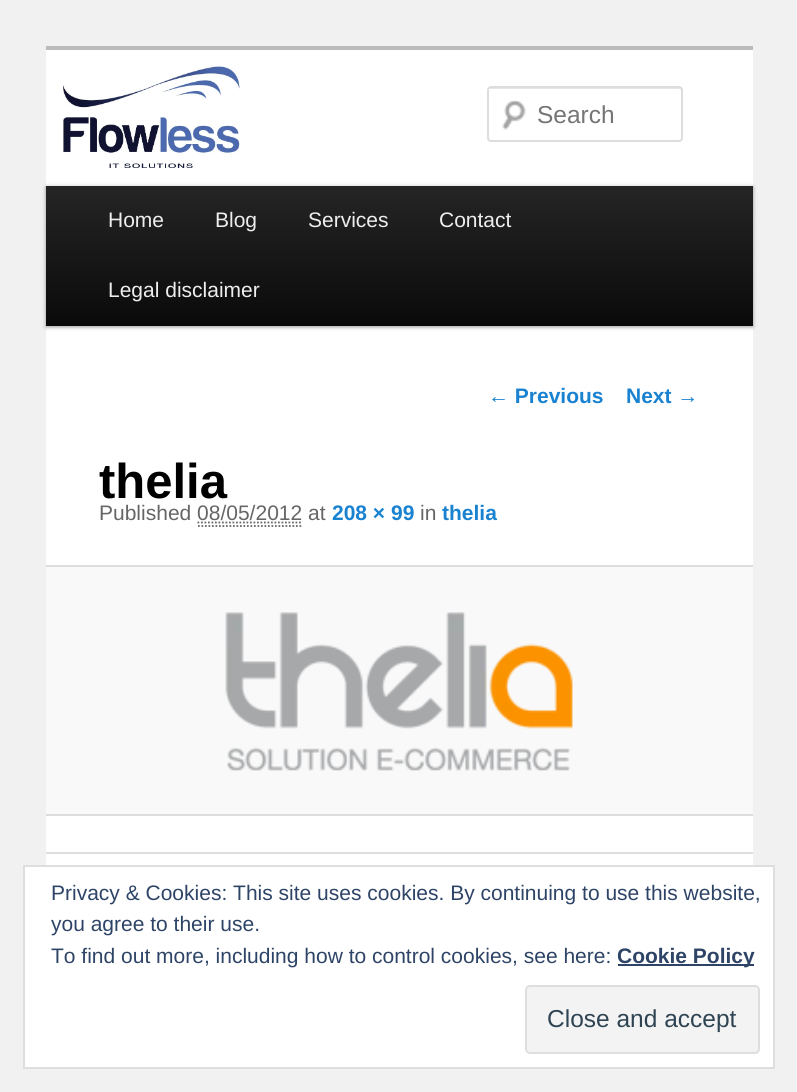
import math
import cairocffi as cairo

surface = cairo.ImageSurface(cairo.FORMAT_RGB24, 797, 1092)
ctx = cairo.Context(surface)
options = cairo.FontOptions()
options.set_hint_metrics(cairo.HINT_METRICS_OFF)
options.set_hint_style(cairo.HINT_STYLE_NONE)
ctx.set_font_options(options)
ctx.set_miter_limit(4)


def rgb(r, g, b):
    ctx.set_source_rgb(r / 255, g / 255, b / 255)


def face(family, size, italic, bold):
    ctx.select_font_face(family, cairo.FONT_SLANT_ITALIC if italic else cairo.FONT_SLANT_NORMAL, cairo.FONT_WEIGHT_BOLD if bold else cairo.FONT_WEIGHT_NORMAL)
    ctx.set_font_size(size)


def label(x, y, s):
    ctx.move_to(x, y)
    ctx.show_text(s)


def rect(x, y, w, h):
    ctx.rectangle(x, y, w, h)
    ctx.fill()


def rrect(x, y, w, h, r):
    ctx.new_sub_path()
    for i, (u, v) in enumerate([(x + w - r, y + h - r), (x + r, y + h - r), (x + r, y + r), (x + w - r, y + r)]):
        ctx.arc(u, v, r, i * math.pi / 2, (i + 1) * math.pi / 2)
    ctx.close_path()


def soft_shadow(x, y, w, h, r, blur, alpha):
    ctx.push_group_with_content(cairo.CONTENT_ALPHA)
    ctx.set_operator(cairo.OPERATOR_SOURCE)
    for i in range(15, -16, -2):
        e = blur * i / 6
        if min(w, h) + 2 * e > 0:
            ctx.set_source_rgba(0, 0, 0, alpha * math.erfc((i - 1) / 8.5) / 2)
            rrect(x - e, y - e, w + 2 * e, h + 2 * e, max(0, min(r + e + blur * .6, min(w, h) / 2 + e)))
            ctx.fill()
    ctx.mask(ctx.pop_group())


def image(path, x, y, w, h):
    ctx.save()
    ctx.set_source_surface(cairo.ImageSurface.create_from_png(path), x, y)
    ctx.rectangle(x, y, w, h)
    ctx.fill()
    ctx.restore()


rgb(241, 241, 241)
ctx.paint()
rgb(255, 255, 255)
rect(46, 50, 707, 815)
rgb(187, 187, 187)
rect(46, 46, 707, 4)
image('image0.png', 63, 66, 177, 102)
image('image1.png', 502, 100, 24, 30)
rgb(230, 230, 230)
ctx.new_path()
ctx.move_to(490, 89)
ctx.line_to(679, 89)
ctx.line_to(681, 90)
ctx.line_to(681, 91)
ctx.line_to(681, 90)
ctx.curve_to(681, 89, 680, 88, 679, 88)
ctx.line_to(490, 88)
ctx.curve_to(489, 88, 488, 89, 488, 90)
ctx.line_to(488, 91)
ctx.curve_to(488, 90, 489, 89, 490, 89)
ctx.close_path()
ctx.fill()
rrect(488, 87, 194, 54, 3)
rgb(221, 221, 221)
ctx.stroke()
face('Liberation Sans', 24.5, 0, 0)
rgb(117, 117, 117)
label(537, 123, 'Search')
rgb(0, 0, 0)
soft_shadow(46, 187, 707, 140, 0, 2, 0.4)
gradient = cairo.LinearGradient(399, 185, 399, 326)
gradient.add_color_stop_rgba(0, 0.145, 0.145, 0.145, 1)
gradient.add_color_stop_rgba(1, 0.039, 0.039, 0.039, 1)
ctx.set_source(gradient)
rect(46, 186, 707, 140)
face('Liberation Sans', 21, 0, 0)
rgb(238, 238, 238)
label(108, 227, 'Home')
label(215, 227, 'Blog')
label(308, 227, 'Services')
label(439, 227, 'Contact')
label(108, 297, 'Legal disclaimer')
face('Liberation Sans', 21, 0, 1)
rgb(25, 130, 209)
label(488, 403, '← Previous')
label(626, 403, 'Next →')
face('Liberation Sans', 49, 0, 1)
rgb(0, 0, 0)
label(99, 498, 'thelia')
face('Liberation Sans', 21, 0, 0)
rgb(102, 102, 102)
label(99, 520, 'Published 08/05/2012 at')
face('Liberation Sans', 21, 0, 1)
rgb(25, 130, 209)
label(332, 520, '208 × 99')
face('Liberation Sans', 21, 0, 0)
rgb(102, 102, 102)
label(420, 520, 'in')
face('Liberation Sans', 21, 0, 1)
rgb(25, 130, 209)
label(442, 520, 'thelia')
ctx.new_path()
ctx.move_to(197.5, 522.5)
ctx.line_to(302.5, 522.5)
rgb(102, 102, 102)
ctx.set_line_width(1.8)
ctx.set_dash([1.75, 1.75])
ctx.stroke()
ctx.new_path()
ctx.move_to(198, 526)
ctx.line_to(303, 526)
ctx.stroke()
rgb(249, 249, 249)
rect(46, 567, 707, 247)
rgb(221, 221, 221)
rect(46, 565, 707, 2)
rect(46, 814, 707, 2)
image('image2.png', 225, 612, 348, 159)
rect(46, 852, 707, 2)
rgb(255, 255, 255)
ctx.rectangle(24, 866, 750, 202)
ctx.fill_preserve()
rgb(222, 222, 222)
ctx.set_line_width(2)
ctx.set_dash([])
ctx.stroke()
face('Liberation Sans', 21, 0, 0)
rgb(46, 68, 103)
label(51, 900, 'Privacy & Cookies: This site uses cookies. By continuing to use this website,')
label(51, 931, 'you agree to their use.')
label(51, 963, 'To find out more, including how to control cookies, see here:')
rect(618, 964, 136, 2)
face('Liberation Sans', 21, 0, 1)
label(617, 963, 'Cookie Policy')
rgb(243, 243, 243)
rrect(526, 986, 233, 67, 4)
ctx.fill_preserve()
rgb(222, 222, 222)
ctx.stroke()
face('Liberation Sans', 24.5, 0, 0)
rgb(46, 68, 83)
label(547, 1027, 'Close and accept')
surface.write_to_png('render.png')
